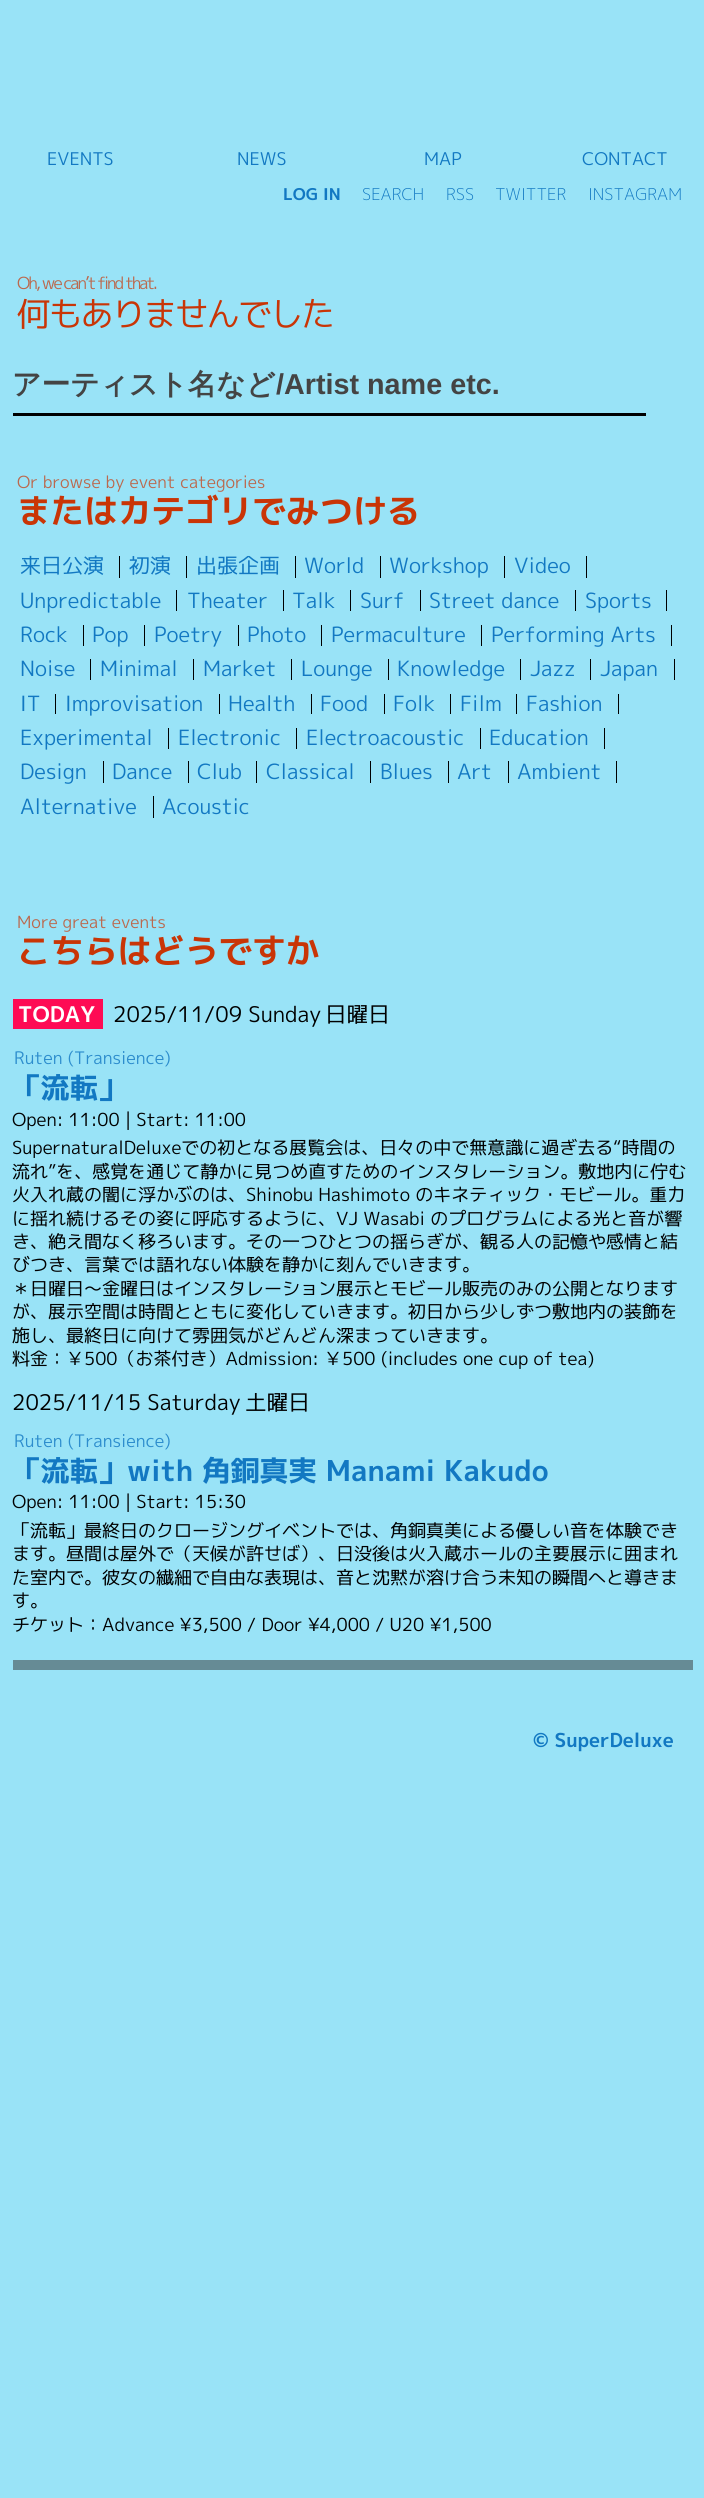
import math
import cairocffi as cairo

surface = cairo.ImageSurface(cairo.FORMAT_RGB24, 704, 2498)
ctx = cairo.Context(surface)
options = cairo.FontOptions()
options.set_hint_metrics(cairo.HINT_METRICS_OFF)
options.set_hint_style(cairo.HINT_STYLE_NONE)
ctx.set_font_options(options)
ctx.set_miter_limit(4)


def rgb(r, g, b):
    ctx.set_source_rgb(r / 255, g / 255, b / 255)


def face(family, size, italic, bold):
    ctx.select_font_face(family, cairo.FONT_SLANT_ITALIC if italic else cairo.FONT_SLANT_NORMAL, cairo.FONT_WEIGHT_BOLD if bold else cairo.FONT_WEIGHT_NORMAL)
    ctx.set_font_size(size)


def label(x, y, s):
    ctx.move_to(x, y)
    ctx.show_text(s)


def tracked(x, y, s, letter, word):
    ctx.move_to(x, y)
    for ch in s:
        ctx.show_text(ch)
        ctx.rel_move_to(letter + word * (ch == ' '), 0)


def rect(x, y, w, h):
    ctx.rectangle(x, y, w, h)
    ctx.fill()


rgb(153, 227, 247)
ctx.paint()
face('M PLUS 1p', 17.5, 0, 0)
rgb(18, 120, 194)
label(47, 165, 'EVENTS')
label(237, 165, 'NEWS')
label(424, 165, 'MAP')
label(582, 165, 'CONTACT')
face('M PLUS 1p', 16.25, 0, 1)
label(283, 200, 'LOG IN')
face('M PLUS 1p Light', 16.25, 0, 0)
label(362, 200, 'SEARCH')
label(446, 200, 'RSS')
label(495, 200, 'TWITTER')
label(588, 200, 'INSTAGRAM')
face('M PLUS 1p', 16.75, 0, 0)
rgb(187, 105, 78)
tracked(17, 289, 'Oh, we can’t find that.', -2, 0)
face('M PLUS 1p', 33.6, 0, 0)
rgb(201, 53, 6)
tracked(17, 326, '何もありませんでした', -2, 0)
rgb(0, 0, 0)
rect(13, 413, 633, 3)
face('WenQuanYi Zen Hei', 28.75, 0, 1)
rgb(68, 68, 68)
label(12, 394, 'アーティスト名など')
face('Liberation Sans', 28.75, 0, 1)
label(276, 394, '/Artist name etc.')
face('M PLUS 1p', 16.75, 0, 0)
rgb(187, 105, 78)
label(17, 488, 'Or browse by event categories')
face('M PLUS 1p', 33.6, 0, 1)
rgb(201, 53, 6)
label(17, 523, 'またはカテゴリでみつける')
rgb(0, 0, 0)
rect(119, 556, 1, 22)
face('M PLUS 1p', 21, 0, 0)
rgb(18, 120, 194)
label(20, 573, '来日公演')
rgb(0, 0, 0)
rect(186, 556, 1, 22)
rgb(18, 120, 194)
label(129, 573, '初演')
rgb(0, 0, 0)
rect(295, 556, 1, 22)
rgb(18, 120, 194)
label(196, 573, '出張企画')
rgb(0, 0, 0)
rect(380, 556, 1, 22)
rgb(18, 120, 194)
label(304, 573, 'World')
rgb(0, 0, 0)
rect(504, 556, 1, 22)
rgb(18, 120, 194)
label(389, 573, 'Workshop')
rgb(0, 0, 0)
rect(586, 556, 1, 22)
rgb(18, 120, 194)
label(514, 573, 'Video')
rgb(0, 0, 0)
rect(176, 590, 1, 21)
rgb(18, 120, 194)
label(20, 608, 'Unpredictable')
rgb(0, 0, 0)
rect(283, 590, 1, 21)
rgb(18, 120, 194)
label(187, 608, 'Theater')
rgb(0, 0, 0)
rect(350, 590, 1, 21)
rgb(18, 120, 194)
label(292, 608, 'Talk')
rgb(0, 0, 0)
rect(420, 590, 1, 21)
rgb(18, 120, 194)
label(360, 608, 'Surf')
rgb(0, 0, 0)
rect(575, 590, 1, 21)
rgb(18, 120, 194)
label(429, 608, 'Street dance')
rgb(0, 0, 0)
rect(666, 590, 1, 21)
rgb(18, 120, 194)
label(585, 608, 'Sports')
rgb(0, 0, 0)
rect(83, 625, 1, 21)
rgb(18, 120, 194)
label(20, 642, 'Rock')
rgb(0, 0, 0)
rect(144, 625, 1, 21)
rgb(18, 120, 194)
label(92, 642, 'Pop')
rgb(0, 0, 0)
rect(238, 625, 1, 21)
rgb(18, 120, 194)
label(154, 642, 'Poetry')
rgb(0, 0, 0)
rect(321, 625, 1, 21)
rgb(18, 120, 194)
label(247, 642, 'Photo')
rgb(0, 0, 0)
rect(481, 625, 1, 21)
rgb(18, 120, 194)
label(331, 642, 'Permaculture')
rgb(0, 0, 0)
rect(671, 625, 1, 21)
rgb(18, 120, 194)
label(491, 642, 'Performing Arts')
rgb(0, 0, 0)
rect(90, 659, 1, 21)
rgb(18, 120, 194)
label(20, 676, 'Noise')
rgb(0, 0, 0)
rect(193, 659, 1, 21)
rgb(18, 120, 194)
label(100, 676, 'Minimal')
rgb(0, 0, 0)
rect(291, 659, 1, 21)
rgb(18, 120, 194)
label(203, 676, 'Market')
rgb(0, 0, 0)
rect(388, 659, 1, 21)
rgb(18, 120, 194)
label(301, 676, 'Lounge')
rgb(0, 0, 0)
rect(520, 659, 1, 21)
rgb(18, 120, 194)
label(397, 676, 'Knowledge')
rgb(0, 0, 0)
rect(590, 659, 1, 21)
rgb(18, 120, 194)
label(530, 676, 'Jazz')
rgb(0, 0, 0)
rect(674, 659, 1, 21)
rgb(18, 120, 194)
label(600, 676, 'Japan')
rgb(0, 0, 0)
rect(55, 694, 1, 20)
rgb(18, 120, 194)
label(20, 711, 'IT')
rgb(0, 0, 0)
rect(219, 694, 1, 20)
rgb(18, 120, 194)
label(65, 711, 'Improvisation')
rgb(0, 0, 0)
rect(311, 694, 1, 20)
rgb(18, 120, 194)
label(228, 711, 'Health')
rgb(0, 0, 0)
rect(384, 694, 1, 20)
rgb(18, 120, 194)
label(320, 711, 'Food')
rgb(0, 0, 0)
rect(450, 694, 1, 20)
rgb(18, 120, 194)
label(393, 711, 'Folk')
rgb(0, 0, 0)
rect(516, 694, 1, 20)
rgb(18, 120, 194)
label(460, 711, 'Film')
rgb(0, 0, 0)
rect(618, 694, 1, 20)
rgb(18, 120, 194)
label(526, 711, 'Fashion')
rgb(0, 0, 0)
rect(168, 728, 1, 21)
rgb(18, 120, 194)
label(20, 745, 'Experimental')
rgb(0, 0, 0)
rect(296, 728, 1, 21)
rgb(18, 120, 194)
label(178, 745, 'Electronic')
rgb(0, 0, 0)
rect(480, 728, 1, 21)
rgb(18, 120, 194)
label(306, 745, 'Electroacoustic')
rgb(0, 0, 0)
rect(604, 728, 1, 21)
rgb(18, 120, 194)
label(489, 745, 'Education')
rgb(0, 0, 0)
rect(103, 761, 1, 22)
rgb(18, 120, 194)
label(20, 779, 'Design')
rgb(0, 0, 0)
rect(188, 761, 1, 22)
rgb(18, 120, 194)
label(112, 779, 'Dance')
rgb(0, 0, 0)
rect(256, 761, 1, 22)
rgb(18, 120, 194)
label(197, 779, 'Club')
rgb(0, 0, 0)
rect(370, 761, 1, 22)
rgb(18, 120, 194)
label(266, 779, 'Classical')
rgb(0, 0, 0)
rect(448, 761, 1, 22)
rgb(18, 120, 194)
label(380, 779, 'Blues')
rgb(0, 0, 0)
rect(508, 761, 1, 22)
rgb(18, 120, 194)
label(457, 779, 'Art')
rgb(0, 0, 0)
rect(616, 761, 1, 22)
rgb(18, 120, 194)
label(517, 779, 'Ambient')
rgb(0, 0, 0)
rect(153, 796, 1, 22)
rgb(18, 120, 194)
label(20, 814, 'Alternative')
label(162, 814, 'Acoustic')
face('M PLUS 1p', 16.75, 0, 0)
rgb(187, 105, 78)
label(17, 928, 'More great events')
face('M PLUS 1p', 33.6, 0, 1)
rgb(201, 53, 6)
label(17, 963, 'こちらはどうですか')
rgb(254, 11, 84)
rect(13, 999, 90, 30)
face('M PLUS 1p', 21.6, 0, 1)
rgb(255, 255, 255)
label(18, 1022, 'TODAY')
face('M PLUS 1p', 21.6, 0, 0)
rgb(0, 0, 0)
label(113, 1022, '2025/11/09 Sunday')
label(325, 1022, '日曜日')
face('M PLUS 1p', 17.25, 0, 0)
rgb(45, 141, 205)
label(14, 1064, 'Ruten (Transience)')
face('M PLUS 1p', 28.75, 0, 1)
rgb(18, 120, 194)
label(12, 1098, '「流転」')
face('M PLUS 1p', 18, 0, 0)
rgb(0, 0, 0)
label(12, 1126, 'Open: 11:00 | Start: 11:00')
label(12, 1154, 'SupernaturalDeluxeでの初となる展覧会は、日々の中で無意識に過ぎ去る“時間の')
label(12, 1178, '流れ”を、感覚を通じて静かに見つめ直すためのインスタレーション。敷地内に佇む')
label(12, 1201, '火入れ蔵の闇に浮かぶのは、Shinobu Hashimoto のキネティック・モビール。重力')
label(12, 1225, 'に揺れ続けるその姿に呼応するように、VJ Wasabi のプログラムによる光と音が響')
label(12, 1248, 'き、絶え間なく移ろいます。その一つひとつの揺らぎが、観る人の記憶や感情と結')
label(12, 1271, 'びつき、言葉では語れない体験を静かに刻んでいきます。')
label(12, 1295, '＊日曜日〜金曜日はインスタレーション展示とモビール販売のみの公開となります')
label(12, 1318, 'が、展示空間は時間とともに変化していきます。初日から少しずつ敷地内の装飾を')
label(12, 1342, '施し、最終日に向けて雰囲気がどんどん深まっていきます。')
label(12, 1365, '料金：￥500（お茶付き）Admission: ￥500 (includes one cup of tea)')
face('M PLUS 1p', 21.6, 0, 0)
label(12, 1410, '2025/11/15 Saturday')
label(245, 1410, '土曜日')
face('M PLUS 1p', 17.25, 0, 0)
rgb(45, 141, 205)
label(14, 1447, 'Ruten (Transience)')
face('M PLUS 1p', 28.75, 0, 1)
rgb(18, 120, 194)
label(12, 1481, '「流転」with 角銅真実 Manami Kakudo')
face('M PLUS 1p', 18, 0, 0)
rgb(0, 0, 0)
label(12, 1508, 'Open: 11:00 | Start: 15:30')
label(12, 1537, '「流転」最終日のクロージングイベントでは、角銅真美による優しい音を体験でき')
label(12, 1560, 'ます。昼間は屋外で（天候が許せば）、日没後は火入蔵ホールの主要展示に囲まれ')
label(12, 1584, 'た室内で。彼女の繊細で自由な表現は、音と沈黙が溶け合う未知の瞬間へと導きま')
label(12, 1607, 'す。')
label(12, 1631, 'チケット：Advance ¥3,500 / Door ¥4,000 / U20 ¥1,500')
rgb(102, 139, 149)
rect(13, 1660, 680, 10)
face('M PLUS 1p', 19.25, 0, 1)
rgb(18, 120, 194)
label(533, 1747, '© SuperDeluxe')
surface.write_to_png('render.png')
